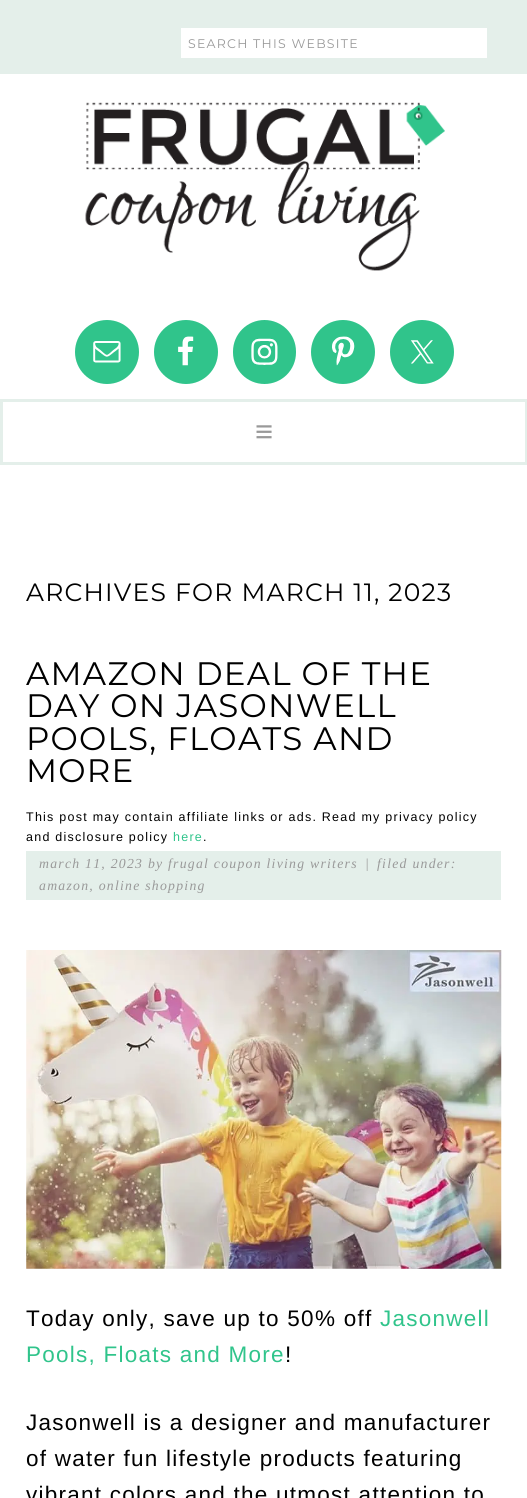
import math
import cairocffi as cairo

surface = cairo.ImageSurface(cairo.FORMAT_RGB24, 527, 1498)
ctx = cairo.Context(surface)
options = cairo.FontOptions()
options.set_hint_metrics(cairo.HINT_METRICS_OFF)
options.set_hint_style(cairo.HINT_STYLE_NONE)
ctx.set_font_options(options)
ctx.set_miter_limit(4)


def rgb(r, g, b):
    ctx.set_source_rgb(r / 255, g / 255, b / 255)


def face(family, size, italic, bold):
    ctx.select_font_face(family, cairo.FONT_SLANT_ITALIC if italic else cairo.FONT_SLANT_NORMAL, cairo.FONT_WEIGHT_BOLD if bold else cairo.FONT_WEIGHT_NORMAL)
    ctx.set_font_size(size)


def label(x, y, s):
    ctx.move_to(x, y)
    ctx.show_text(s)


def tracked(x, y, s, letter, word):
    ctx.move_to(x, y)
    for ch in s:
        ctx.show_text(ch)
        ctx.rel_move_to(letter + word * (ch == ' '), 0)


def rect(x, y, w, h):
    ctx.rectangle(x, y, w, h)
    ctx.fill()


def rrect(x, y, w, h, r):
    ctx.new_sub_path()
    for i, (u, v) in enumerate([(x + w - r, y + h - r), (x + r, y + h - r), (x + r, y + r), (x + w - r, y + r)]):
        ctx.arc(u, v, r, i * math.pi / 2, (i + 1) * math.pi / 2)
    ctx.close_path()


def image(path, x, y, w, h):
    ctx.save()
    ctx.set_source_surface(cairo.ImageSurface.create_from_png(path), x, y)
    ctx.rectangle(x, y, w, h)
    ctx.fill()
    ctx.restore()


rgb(255, 255, 255)
ctx.paint()
rgb(228, 239, 234)
rect(0, 0, 527, 74)
rgb(255, 255, 255)
rect(181, 28, 306, 30)
face('Montserrat Thin', 12.5, 0, 0)
rgb(153, 153, 153)
tracked(188, 48, 'SEARCH THIS WEBSITE', 1.25, 0)
image('image0.png', 85, 102, 360, 169)
rgb(48, 196, 139)
ctx.arc(107, 352, 32, 0, 2 * math.pi)
ctx.fill()
image('image1.png', 93, 341, 28, 22)
ctx.arc(186, 352, 32, 0, 2 * math.pi)
ctx.fill()
image('image2.png', 178, 336, 16, 30)
rrect(233, 320, 63, 64, 31.5)
ctx.fill()
image('image3.png', 251, 338, 27, 27)
ctx.arc(343, 352, 32, 0, 2 * math.pi)
ctx.fill()
image('image4.png', 332, 336, 23, 30)
ctx.arc(422, 352, 32, 0, 2 * math.pi)
ctx.fill()
image('image5.png', 411, 340, 23, 24)
ctx.rectangle(1.5, 400.5, 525, 63)
rgb(228, 239, 234)
ctx.set_line_width(3)
ctx.stroke()
face('Liberation Sans', 31, 0, 0)
rgb(153, 153, 153)
label(255, 442, '≡')
face('Montserrat Thin', 25, 0, 0)
rgb(0, 0, 0)
tracked(26, 601, 'ARCHIVES FOR MARCH 11, 2023', 1.25, 0)
face('Montserrat Thin', 32.5, 0, 0)
tracked(26, 685, 'AMAZON DEAL OF THE', 1.25, 0)
tracked(26, 717, 'DAY ON JASONWELL', 1.25, 0)
tracked(26, 750, 'POOLS, FLOATS AND', 1.25, 0)
tracked(26, 782, 'MORE', 1.25, 0)
face('Liberation Sans', 12.5, 0, 0)
tracked(26, 821, 'This post may contain affiliate links or ads. Read my privacy policy', 1.25, 0)
tracked(26, 841, 'and disclosure policy', 1.25, 0)
rgb(48, 196, 139)
tracked(173, 841, 'here', 1.25, 0)
rgb(0, 0, 0)
tracked(203, 841, '.', 1.25, 0)
rgb(228, 239, 234)
rect(26, 851, 475, 49)
face('Liberation Serif', 13.75, 1, 0)
rgb(153, 153, 153)
tracked(39, 868, 'march 11, 2023 by frugal coupon living writers', 1.25, 0)
tracked(365, 868, '|', 1.25, 0)
tracked(377, 868, 'filed under:', 1.25, 0)
tracked(39, 890, 'amazon, online shopping', 1.25, 0)
image('image6.png', 26, 950, 476, 319)
face('Liberation Sans', 22.5, 0, 0)
rgb(0, 0, 0)
tracked(26, 1326, 'Today only, save up to 50% off', 1.25, 0)
rgb(48, 196, 139)
tracked(380, 1326, 'Jasonwell', 1.25, 0)
tracked(26, 1362, 'Pools, Floats and More', 1.25, 0)
rgb(0, 0, 0)
tracked(285, 1362, '!', 1.25, 0)
tracked(26, 1430, 'Jasonwell is a designer and manufacturer', 1.25, 0)
tracked(26, 1466, 'of water fun lifestyle products featuring', 1.25, 0)
tracked(26, 1502, 'vibrant colors and the utmost attention to', 1.25, 0)
surface.write_to_png('render.png')
